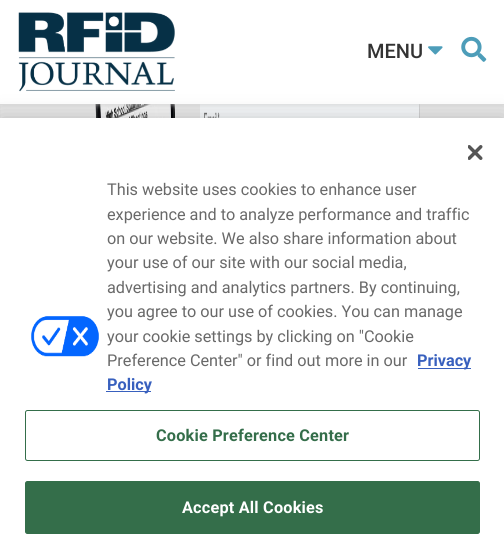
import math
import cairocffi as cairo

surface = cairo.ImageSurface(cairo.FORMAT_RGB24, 504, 553)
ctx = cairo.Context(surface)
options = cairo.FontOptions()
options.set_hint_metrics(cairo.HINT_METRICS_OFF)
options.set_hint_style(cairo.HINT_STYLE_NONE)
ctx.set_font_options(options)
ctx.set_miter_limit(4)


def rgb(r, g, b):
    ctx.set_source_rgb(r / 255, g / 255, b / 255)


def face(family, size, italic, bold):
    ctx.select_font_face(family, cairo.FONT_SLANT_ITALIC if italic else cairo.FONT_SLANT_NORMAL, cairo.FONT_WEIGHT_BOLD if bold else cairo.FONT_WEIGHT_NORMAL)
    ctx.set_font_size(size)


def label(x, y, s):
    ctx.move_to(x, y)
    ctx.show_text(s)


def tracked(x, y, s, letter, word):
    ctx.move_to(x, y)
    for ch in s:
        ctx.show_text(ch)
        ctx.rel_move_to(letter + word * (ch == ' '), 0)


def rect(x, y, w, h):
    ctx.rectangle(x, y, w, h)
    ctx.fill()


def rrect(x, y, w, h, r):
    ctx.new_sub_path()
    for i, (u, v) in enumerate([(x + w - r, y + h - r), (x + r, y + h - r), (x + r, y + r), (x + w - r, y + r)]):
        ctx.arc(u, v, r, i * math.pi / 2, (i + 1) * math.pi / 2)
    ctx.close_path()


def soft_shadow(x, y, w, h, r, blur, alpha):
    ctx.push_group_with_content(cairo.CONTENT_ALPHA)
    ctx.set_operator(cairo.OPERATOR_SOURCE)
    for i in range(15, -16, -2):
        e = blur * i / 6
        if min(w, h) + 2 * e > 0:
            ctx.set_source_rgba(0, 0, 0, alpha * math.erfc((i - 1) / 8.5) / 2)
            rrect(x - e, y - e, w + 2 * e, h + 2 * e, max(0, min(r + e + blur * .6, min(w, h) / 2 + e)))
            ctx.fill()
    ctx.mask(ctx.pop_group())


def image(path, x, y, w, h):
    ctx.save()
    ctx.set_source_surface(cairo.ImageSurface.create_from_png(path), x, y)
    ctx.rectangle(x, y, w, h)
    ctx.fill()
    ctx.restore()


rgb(255, 255, 255)
ctx.paint()
image('image3.png', 0, 104, 504, 14)
rgb(204, 204, 204)
soft_shadow(0, 0, 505, 104, 0, 3, 1)
rgb(255, 255, 255)
rect(0, 0, 504, 104)
image('image0.png', 18, 12, 157, 80)
face('Roboto Medium', 20, 0, 0)
rgb(51, 51, 51)
label(367, 58, 'MENU')
image('image1.png', 428, 46, 15, 9)
image('image2.png', 461, 36, 26, 26)
rgb(0, 0, 0)
soft_shadow(0, 118, 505, 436, 0, 11, 0.2)
rgb(255, 255, 255)
rect(0, 118, 504, 435)
image('image4.png', 468, 145, 15, 15)
image('image5.png', 31, 316, 68, 41)
face('Roboto', 16.25, 0, 0)
rgb(105, 105, 105)
label(107, 195, 'This website uses cookies to enhance user')
label(107, 220, 'experience and to analyze performance and traffic')
label(107, 244, 'on our website. We also share information about')
label(107, 268, 'your use of our site with our social media,')
label(107, 293, 'advertising and analytics partners. By continuing,')
label(107, 317, 'you agree to our use of cookies. You can manage')
label(107, 342, 'your cookie settings by clicking on "Cookie')
label(107, 366, 'Preference Center" or find out more in our')
rgb(56, 96, 190)
rect(418, 368, 53, 1)
face('Roboto', 16.25, 0, 1)
label(417, 366, 'Privacy')
rect(106, 391, 45, 1)
label(107, 390, 'Policy')
rrect(25.5, 410.5, 454, 50, 2)
rgb(52, 110, 74)
ctx.set_line_width(1)
ctx.stroke()
tracked(156, 441, 'Cookie Preference Center', 0.2, 0)
rrect(25.5, 481.5, 454, 52, 2)
ctx.fill_preserve()
ctx.stroke()
rgb(255, 255, 255)
tracked(182, 513, 'Accept All Cookies', 0.2, 0)
surface.write_to_png('render.png')
